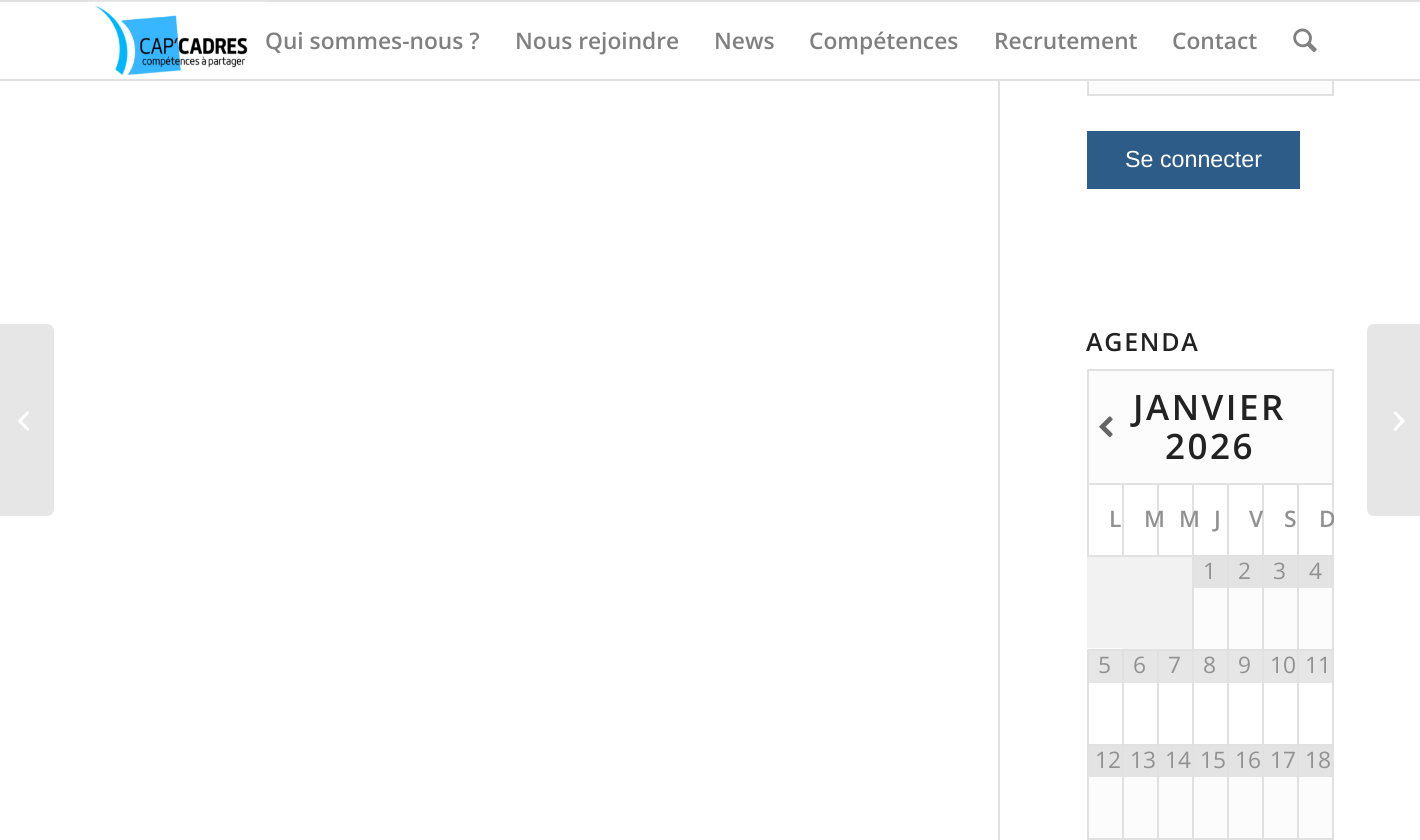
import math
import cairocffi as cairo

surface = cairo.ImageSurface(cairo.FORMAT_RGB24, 1420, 840)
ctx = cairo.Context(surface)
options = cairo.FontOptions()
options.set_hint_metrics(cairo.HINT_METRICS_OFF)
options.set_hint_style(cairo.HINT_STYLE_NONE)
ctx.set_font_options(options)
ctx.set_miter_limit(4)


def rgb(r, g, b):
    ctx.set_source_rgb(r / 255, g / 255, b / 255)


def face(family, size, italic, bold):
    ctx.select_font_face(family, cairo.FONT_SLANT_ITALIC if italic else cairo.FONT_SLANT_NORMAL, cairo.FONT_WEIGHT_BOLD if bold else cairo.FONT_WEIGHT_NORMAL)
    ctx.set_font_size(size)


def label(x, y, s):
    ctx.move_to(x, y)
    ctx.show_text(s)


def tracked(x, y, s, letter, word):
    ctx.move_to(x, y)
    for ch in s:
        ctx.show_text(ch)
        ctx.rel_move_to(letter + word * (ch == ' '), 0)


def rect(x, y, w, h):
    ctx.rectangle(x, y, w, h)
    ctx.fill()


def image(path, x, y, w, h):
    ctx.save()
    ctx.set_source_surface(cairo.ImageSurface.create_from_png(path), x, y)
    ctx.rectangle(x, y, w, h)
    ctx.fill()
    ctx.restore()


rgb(255, 255, 255)
ctx.paint()
rgb(225, 225, 225)
rect(0, 0, 1420, 2)
rgb(252, 252, 252)
rect(1089, 81, 243, 13)
ctx.rectangle(1088, 40, 245, 55)
rgb(225, 225, 225)
ctx.stroke()
rect(0, 79, 1420, 2)
image('image0.png', 88, 1, 180, 75)
face('Open Sans SemiBold', 22.75, 0, 0)
rgb(128, 128, 128)
label(265, 49, 'Qui sommes-nous ?')
label(515, 49, 'Nous rejoindre')
label(714, 49, 'News')
label(809, 49, 'Compétences')
rgb(255, 255, 255)
rect(1087, 39, 247, 40)
rgb(128, 128, 128)
label(994, 49, 'Recrutement')
label(1172, 49, 'Contact')
image('image1.png', 1293, 28, 24, 24)
rgb(230, 230, 230)
ctx.new_path()
ctx.move_to(0, 324)
ctx.line_to(47, 324)
ctx.curve_to(51, 324, 54, 327, 54, 331)
ctx.line_to(54, 509)
ctx.curve_to(54, 513, 51, 516, 47, 516)
ctx.line_to(0, 516)
ctx.close_path()
ctx.fill()
image('image2.png', 18, 411, 11, 20)
rgb(225, 225, 225)
rect(998, 81, 2, 759)
rgb(45, 92, 136)
rect(1087, 131, 213, 58)
face('Liberation Sans', 23.25, 0, 0)
rgb(255, 255, 255)
label(1125, 167, 'Se connecter')
face('Open Sans SemiBold', 25, 0, 0)
rgb(34, 34, 34)
tracked(1086, 351, 'AGENDA', 1.75, 0)
rgb(252, 252, 252)
rect(1087, 371, 245, 467)
rgb(225, 225, 225)
rect(1087, 369, 247, 2)
rect(1192, 555, 142, 2)
rect(1332, 649, 2, 191)
rect(1332, 483, 2, 168)
rect(1332, 369, 2, 116)
rgb(255, 255, 255)
rect(1089, 485, 243, 70)
rect(1089, 683, 243, 61)
rgb(225, 225, 225)
rect(1297, 838, 37, 2)
rect(1297, 744, 2, 96)
rect(1297, 744, 37, 2)
rect(1297, 649, 2, 97)
rect(1297, 649, 37, 2)
rect(1297, 483, 2, 168)
rect(1262, 838, 37, 2)
rect(1262, 744, 2, 96)
rect(1262, 744, 37, 2)
rect(1262, 649, 2, 97)
rect(1262, 649, 37, 2)
rect(1262, 483, 2, 168)
rect(1227, 838, 37, 2)
rect(1227, 744, 2, 96)
rect(1227, 744, 37, 2)
rect(1227, 649, 2, 97)
rect(1227, 649, 37, 2)
rect(1227, 483, 2, 168)
rect(1192, 838, 37, 2)
rect(1192, 744, 2, 96)
rect(1192, 744, 37, 2)
rect(1192, 649, 2, 97)
rect(1192, 649, 37, 2)
rect(1192, 483, 2, 168)
rect(1157, 555, 37, 2)
rect(1157, 483, 2, 74)
rect(1122, 555, 37, 2)
rect(1122, 483, 2, 74)
rect(1087, 555, 37, 2)
rect(1087, 483, 2, 74)
rect(1087, 483, 247, 2)
rect(1087, 369, 2, 116)
image('image3.png', 1099, 416, 14, 22)
face('Open Sans SemiBold', 35, 0, 0)
rgb(34, 34, 34)
tracked(1133, 420, 'JANVIER', 2.5, 0)
tracked(1165, 459, '2026', 2.5, 0)
face('Open Sans SemiBold', 22.75, 0, 0)
rgb(145, 145, 145)
tracked(1109, 527, 'L', 2.5, 0)
tracked(1144, 527, 'M', 2.5, 0)
tracked(1179, 527, 'M', 2.5, 0)
tracked(1214, 527, 'J', 2.5, 0)
tracked(1249, 527, 'V', 2.5, 0)
tracked(1284, 527, 'S', 2.5, 0)
ctx.save()
ctx.rectangle(999, 0, 335, 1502)
ctx.clip()
tracked(1319, 527, 'D', 2.5, 0)
ctx.restore()
rgb(225, 225, 225)
rect(1157, 838, 37, 2)
rect(1157, 744, 2, 96)
rect(1157, 744, 37, 2)
rect(1157, 649, 2, 97)
rect(1122, 838, 37, 2)
rect(1122, 744, 2, 96)
rect(1122, 744, 37, 2)
rect(1122, 649, 2, 97)
rect(1087, 838, 37, 2)
rect(1087, 744, 2, 96)
rect(1087, 744, 37, 2)
rect(1087, 649, 2, 97)
rect(1087, 649, 107, 2)
rgb(242, 242, 242)
rect(1087, 557, 35, 91)
rect(1122, 557, 70, 92)
rgb(227, 227, 227)
rect(1194, 557, 33, 31)
face('Open Sans', 22.75, 0, 0)
rgb(145, 145, 145)
label(1203, 579, '1')
rgb(227, 227, 227)
rect(1229, 557, 33, 31)
rgb(145, 145, 145)
label(1238, 579, '2')
rgb(227, 227, 227)
rect(1264, 557, 33, 31)
rgb(145, 145, 145)
label(1273, 579, '3')
rgb(227, 227, 227)
rect(1299, 557, 33, 31)
rgb(145, 145, 145)
label(1309, 579, '4')
rgb(230, 230, 230)
rect(1089, 651, 33, 32)
rgb(145, 145, 145)
label(1098, 673, '5')
rgb(230, 230, 230)
rect(1124, 651, 33, 32)
rgb(145, 145, 145)
label(1133, 673, '6')
rgb(230, 230, 230)
rect(1159, 651, 33, 32)
rgb(145, 145, 145)
label(1168, 673, '7')
rgb(230, 230, 230)
rect(1194, 651, 33, 32)
rgb(145, 145, 145)
label(1203, 673, '8')
rgb(230, 230, 230)
rect(1229, 651, 33, 32)
rgb(145, 145, 145)
label(1238, 673, '9')
rgb(230, 230, 230)
rect(1264, 651, 33, 32)
rgb(145, 145, 145)
label(1270, 673, '10')
rgb(230, 230, 230)
rect(1299, 651, 33, 32)
rgb(145, 145, 145)
label(1305, 673, '11')
rgb(227, 227, 227)
rect(1089, 746, 33, 31)
rgb(145, 145, 145)
label(1095, 768, '12')
rgb(227, 227, 227)
rect(1124, 746, 33, 31)
rgb(145, 145, 145)
label(1130, 768, '13')
rgb(227, 227, 227)
rect(1159, 746, 33, 31)
rgb(145, 145, 145)
label(1165, 768, '14')
rgb(227, 227, 227)
rect(1194, 746, 33, 31)
rgb(145, 145, 145)
label(1200, 768, '15')
rgb(227, 227, 227)
rect(1229, 746, 33, 31)
rgb(145, 145, 145)
label(1235, 768, '16')
rgb(227, 227, 227)
rect(1264, 746, 33, 31)
rgb(145, 145, 145)
label(1270, 768, '17')
rgb(227, 227, 227)
rect(1299, 746, 33, 31)
rgb(145, 145, 145)
label(1305, 768, '18')
rgb(230, 230, 230)
ctx.new_path()
ctx.move_to(1374, 324)
ctx.line_to(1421, 324)
ctx.line_to(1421, 516)
ctx.line_to(1374, 516)
ctx.curve_to(1370, 516, 1367, 513, 1367, 509)
ctx.line_to(1367, 331)
ctx.curve_to(1367, 327, 1370, 324, 1374, 324)
ctx.close_path()
ctx.fill()
image('image4.png', 1393, 411, 12, 20)
surface.write_to_png('render.png')
